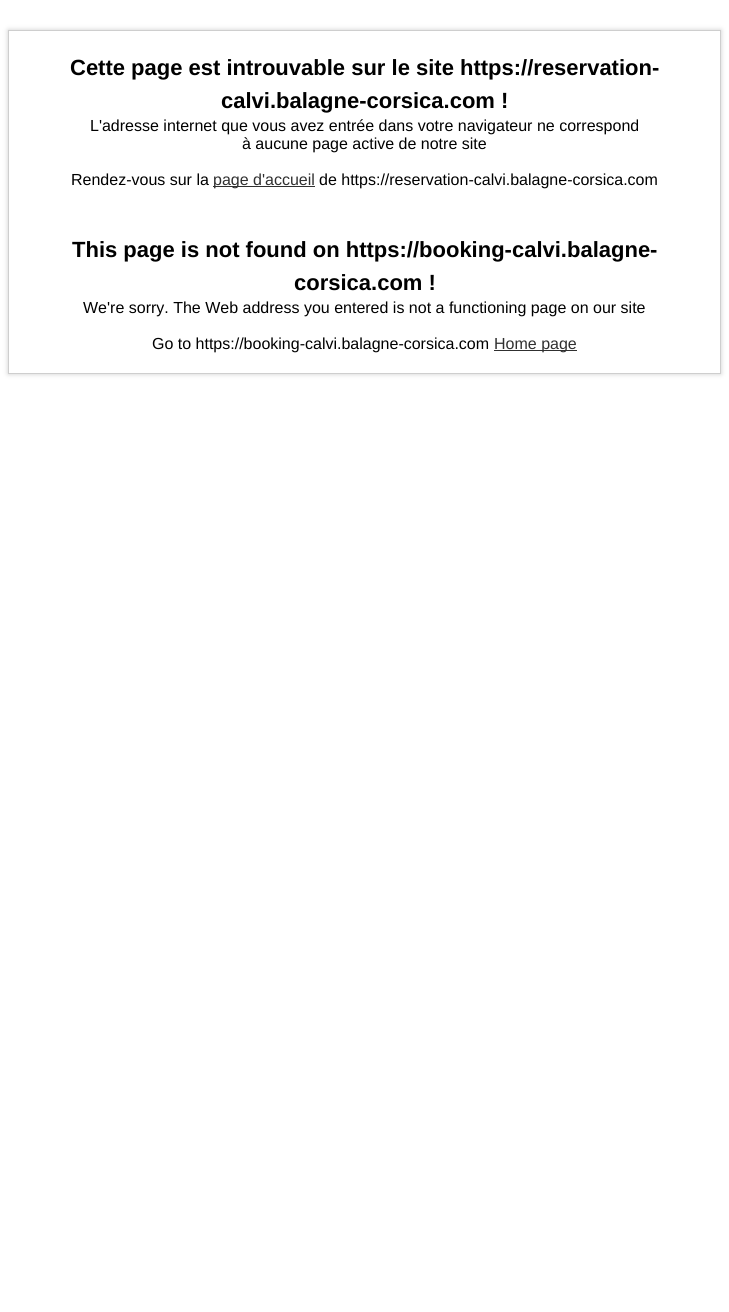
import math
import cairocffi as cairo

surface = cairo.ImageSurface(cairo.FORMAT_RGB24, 729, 1312)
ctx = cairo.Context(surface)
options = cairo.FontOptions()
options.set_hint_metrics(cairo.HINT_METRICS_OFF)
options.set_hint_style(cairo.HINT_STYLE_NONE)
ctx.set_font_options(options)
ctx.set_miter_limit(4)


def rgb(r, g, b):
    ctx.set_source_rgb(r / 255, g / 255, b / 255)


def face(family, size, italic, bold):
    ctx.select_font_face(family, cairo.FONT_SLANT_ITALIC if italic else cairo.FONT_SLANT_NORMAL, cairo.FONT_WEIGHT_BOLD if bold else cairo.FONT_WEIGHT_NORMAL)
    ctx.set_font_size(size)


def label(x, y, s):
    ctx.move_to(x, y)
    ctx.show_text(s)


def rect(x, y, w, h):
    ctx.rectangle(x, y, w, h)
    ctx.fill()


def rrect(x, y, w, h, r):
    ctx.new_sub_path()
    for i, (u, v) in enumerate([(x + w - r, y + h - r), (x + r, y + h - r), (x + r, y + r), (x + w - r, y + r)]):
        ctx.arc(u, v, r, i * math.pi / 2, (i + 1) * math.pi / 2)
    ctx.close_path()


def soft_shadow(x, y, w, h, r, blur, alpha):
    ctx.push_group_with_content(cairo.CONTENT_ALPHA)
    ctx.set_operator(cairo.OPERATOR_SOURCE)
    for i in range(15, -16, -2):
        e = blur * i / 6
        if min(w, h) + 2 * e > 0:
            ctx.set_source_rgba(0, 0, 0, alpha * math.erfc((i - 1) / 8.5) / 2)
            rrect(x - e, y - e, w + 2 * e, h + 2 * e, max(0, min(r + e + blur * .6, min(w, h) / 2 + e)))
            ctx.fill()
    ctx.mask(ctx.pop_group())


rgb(255, 255, 255)
ctx.paint()
ctx.save()
ctx.set_fill_rule(cairo.FILL_RULE_EVEN_ODD)
ctx.new_path()
ctx.move_to(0, 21)
ctx.line_to(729, 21)
ctx.line_to(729, 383)
ctx.line_to(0, 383)
ctx.close_path()
ctx.move_to(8, 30)
ctx.line_to(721, 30)
ctx.line_to(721, 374)
ctx.line_to(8, 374)
ctx.close_path()
ctx.clip()
rgb(206, 206, 206)
soft_shadow(8, 30, 713, 344, 0, 2.5, 1)
ctx.restore()
ctx.rectangle(8.5, 30.5, 712, 343)
rgb(206, 206, 206)
ctx.set_line_width(1)
ctx.stroke()
face('Liberation Sans', 22, 0, 1)
rgb(0, 0, 0)
label(70, 75, 'Cette page est introuvable sur le site https://reservation-')
label(221, 108, 'calvi.balagne-corsica.com !')
face('Liberation Sans', 16, 0, 0)
label(90, 131, 'L\'adresse internet que vous avez entrée dans votre navigateur ne correspond')
label(242, 149, 'à aucune page active de notre site')
label(71, 185, 'Rendez-vous sur la')
rgb(48, 48, 48)
rect(213, 186, 102, 1)
label(213, 185, 'page d\'accueil')
rgb(0, 0, 0)
label(319, 185, 'de https://reservation-calvi.balagne-corsica.com')
face('Liberation Sans', 22, 0, 1)
label(72, 257, 'This page is not found on https://booking-calvi.balagne-')
label(294, 290, 'corsica.com !')
face('Liberation Sans', 16, 0, 0)
label(83, 313, 'We\'re sorry. The Web address you entered is not a functioning page on our site')
label(152, 349, 'Go to https://booking-calvi.balagne-corsica.com')
rgb(48, 48, 48)
rect(494, 350, 83, 1)
label(494, 349, 'Home page')
surface.write_to_png('render.png')
